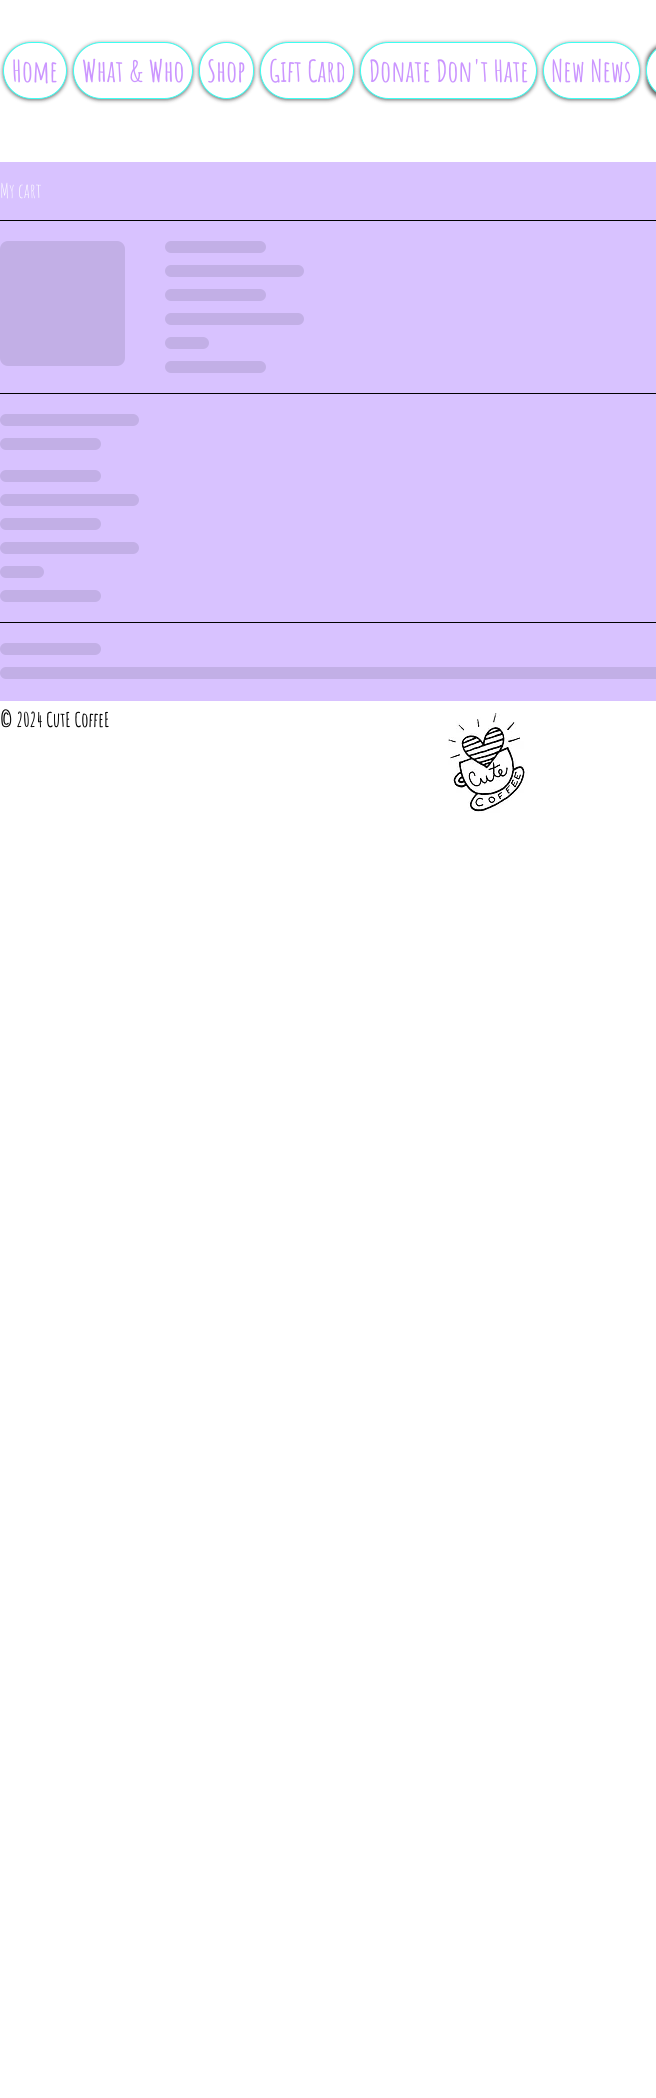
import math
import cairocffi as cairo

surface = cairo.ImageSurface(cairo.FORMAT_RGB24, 656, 2098)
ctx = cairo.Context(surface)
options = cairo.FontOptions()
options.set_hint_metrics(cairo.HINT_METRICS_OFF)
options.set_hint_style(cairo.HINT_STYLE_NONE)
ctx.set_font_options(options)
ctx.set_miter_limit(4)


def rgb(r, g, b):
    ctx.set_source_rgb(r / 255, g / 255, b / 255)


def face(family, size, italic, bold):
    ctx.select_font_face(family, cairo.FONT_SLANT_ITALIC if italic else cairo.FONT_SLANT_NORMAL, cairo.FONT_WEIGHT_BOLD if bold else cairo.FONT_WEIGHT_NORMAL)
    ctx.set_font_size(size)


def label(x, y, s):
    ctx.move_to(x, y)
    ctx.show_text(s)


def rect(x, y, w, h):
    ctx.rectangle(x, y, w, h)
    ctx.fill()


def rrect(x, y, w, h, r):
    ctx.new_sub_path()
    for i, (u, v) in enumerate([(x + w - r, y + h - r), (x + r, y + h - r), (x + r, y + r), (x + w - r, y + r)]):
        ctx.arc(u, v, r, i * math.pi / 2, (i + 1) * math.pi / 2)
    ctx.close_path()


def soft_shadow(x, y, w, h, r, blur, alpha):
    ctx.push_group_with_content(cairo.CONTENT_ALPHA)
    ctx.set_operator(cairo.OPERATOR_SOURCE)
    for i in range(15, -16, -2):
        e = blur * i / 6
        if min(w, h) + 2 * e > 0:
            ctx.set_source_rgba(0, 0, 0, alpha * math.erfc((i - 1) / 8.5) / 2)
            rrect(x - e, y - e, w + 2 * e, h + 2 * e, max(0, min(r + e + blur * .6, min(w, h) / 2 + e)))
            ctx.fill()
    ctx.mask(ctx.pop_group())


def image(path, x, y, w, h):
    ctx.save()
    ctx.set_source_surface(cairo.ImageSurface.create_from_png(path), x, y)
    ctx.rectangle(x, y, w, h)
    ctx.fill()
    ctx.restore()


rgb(255, 255, 255)
ctx.paint()
rgb(0, 0, 0)
soft_shadow(3, 43, 64, 57, 28.5, 2, 0.6)
rgb(255, 255, 255)
rrect(3.5, 42.5, 63, 56, 28)
ctx.fill_preserve()
rgb(61, 255, 242)
ctx.set_line_width(1)
ctx.stroke()
face('Amatic SC', 30, 0, 1)
rgb(203, 150, 255)
label(12, 82, 'Home')
rgb(0, 0, 0)
soft_shadow(73, 43, 120, 57, 28.5, 2, 0.6)
rgb(255, 255, 255)
rrect(73.5, 42.5, 119, 56, 28)
ctx.fill_preserve()
rgb(61, 255, 242)
ctx.stroke()
rgb(203, 150, 255)
label(82, 82, 'What & Who')
rgb(0, 0, 0)
soft_shadow(199, 43, 55, 57, 27.5, 2, 0.6)
rgb(255, 255, 255)
rrect(199.5, 42.5, 54, 56, 27)
ctx.fill_preserve()
rgb(61, 255, 242)
ctx.stroke()
rgb(203, 150, 255)
label(207, 82, 'Shop')
rgb(0, 0, 0)
soft_shadow(260, 43, 94, 57, 28.5, 2, 0.6)
rgb(255, 255, 255)
rrect(260.5, 42.5, 93, 56, 28)
ctx.fill_preserve()
rgb(61, 255, 242)
ctx.stroke()
rgb(203, 150, 255)
label(269, 82, 'Gift Card')
rgb(0, 0, 0)
soft_shadow(360, 43, 177, 57, 28.5, 2, 0.6)
rgb(255, 255, 255)
rrect(360.5, 42.5, 176, 56, 28)
ctx.fill_preserve()
rgb(61, 255, 242)
ctx.stroke()
rgb(203, 150, 255)
label(369, 82, 'Donate Don\'t Hate')
rgb(0, 0, 0)
soft_shadow(543, 43, 97, 57, 28.5, 2, 0.6)
rgb(255, 255, 255)
rrect(543.5, 42.5, 96, 56, 28)
ctx.fill_preserve()
rgb(61, 255, 242)
ctx.stroke()
rgb(203, 150, 255)
label(551, 82, 'New News')
rgb(0, 0, 0)
soft_shadow(646, 43, 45, 57, 28.5, 2, 0.6)
rgb(255, 255, 255)
rrect(646.5, 42.5, 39, 56, 28)
ctx.fill_preserve()
rgb(61, 255, 242)
ctx.stroke()
rgb(216, 194, 255)
rect(0, 162, 656, 539)
rgb(0, 0, 0)
rect(0, 220, 656, 1)
face('Amatic SC', 20, 0, 0)
rgb(255, 255, 255)
label(0, 198, 'My cart')
gradient = cairo.LinearGradient(0, 304, 500, 304)
gradient.add_color_stop_rgba(0.25, 0.761, 0.686, 0.902, 1)
gradient.add_color_stop_rgba(0.37, 0.678, 0.608, 0.8, 1)
gradient.add_color_stop_rgba(0.63, 0.761, 0.686, 0.902, 1)
ctx.set_source(gradient)
rrect(0, 241, 125, 125, 8)
ctx.fill()
gradient = cairo.LinearGradient(165, 247, 569, 247)
gradient.add_color_stop_rgba(0.25, 0.761, 0.686, 0.902, 1)
gradient.add_color_stop_rgba(0.37, 0.678, 0.608, 0.8, 1)
gradient.add_color_stop_rgba(0.63, 0.761, 0.686, 0.902, 1)
ctx.set_source(gradient)
rrect(165, 241, 101, 12, 6)
ctx.fill()
gradient = cairo.LinearGradient(165, 271, 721, 271)
gradient.add_color_stop_rgba(0.25, 0.761, 0.686, 0.902, 1)
gradient.add_color_stop_rgba(0.37, 0.678, 0.608, 0.8, 1)
gradient.add_color_stop_rgba(0.63, 0.761, 0.686, 0.902, 1)
ctx.set_source(gradient)
rrect(165, 265, 139, 12, 6)
ctx.fill()
gradient = cairo.LinearGradient(165, 295, 569, 295)
gradient.add_color_stop_rgba(0.25, 0.761, 0.686, 0.902, 1)
gradient.add_color_stop_rgba(0.37, 0.678, 0.608, 0.8, 1)
gradient.add_color_stop_rgba(0.63, 0.761, 0.686, 0.902, 1)
ctx.set_source(gradient)
rrect(165, 289, 101, 12, 6)
ctx.fill()
gradient = cairo.LinearGradient(165, 319, 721, 319)
gradient.add_color_stop_rgba(0.25, 0.761, 0.686, 0.902, 1)
gradient.add_color_stop_rgba(0.37, 0.678, 0.608, 0.8, 1)
gradient.add_color_stop_rgba(0.63, 0.761, 0.686, 0.902, 1)
ctx.set_source(gradient)
rrect(165, 313, 139, 12, 6)
ctx.fill()
gradient = cairo.LinearGradient(165, 343, 341, 343)
gradient.add_color_stop_rgba(0.25, 0.761, 0.686, 0.902, 1)
gradient.add_color_stop_rgba(0.37, 0.678, 0.608, 0.8, 1)
gradient.add_color_stop_rgba(0.63, 0.761, 0.686, 0.902, 1)
ctx.set_source(gradient)
rrect(165, 337, 44, 12, 6)
ctx.fill()
gradient = cairo.LinearGradient(165, 367, 569, 367)
gradient.add_color_stop_rgba(0.25, 0.761, 0.686, 0.902, 1)
gradient.add_color_stop_rgba(0.37, 0.678, 0.608, 0.8, 1)
gradient.add_color_stop_rgba(0.63, 0.761, 0.686, 0.902, 1)
ctx.set_source(gradient)
rrect(165, 361, 101, 12, 6)
ctx.fill()
rgb(0, 0, 0)
rect(0, 393, 656, 1)
gradient = cairo.LinearGradient(0, 420, 556, 420)
gradient.add_color_stop_rgba(0.25, 0.761, 0.686, 0.902, 1)
gradient.add_color_stop_rgba(0.37, 0.678, 0.608, 0.8, 1)
gradient.add_color_stop_rgba(0.63, 0.761, 0.686, 0.902, 1)
ctx.set_source(gradient)
rrect(0, 414, 139, 12, 6)
ctx.fill()
gradient = cairo.LinearGradient(0, 444, 404, 444)
gradient.add_color_stop_rgba(0.25, 0.761, 0.686, 0.902, 1)
gradient.add_color_stop_rgba(0.37, 0.678, 0.608, 0.8, 1)
gradient.add_color_stop_rgba(0.63, 0.761, 0.686, 0.902, 1)
ctx.set_source(gradient)
rrect(0, 438, 101, 12, 6)
ctx.fill()
gradient = cairo.LinearGradient(0, 476, 404, 476)
gradient.add_color_stop_rgba(0.25, 0.761, 0.686, 0.902, 1)
gradient.add_color_stop_rgba(0.37, 0.678, 0.608, 0.8, 1)
gradient.add_color_stop_rgba(0.63, 0.761, 0.686, 0.902, 1)
ctx.set_source(gradient)
rrect(0, 470, 101, 12, 6)
ctx.fill()
gradient = cairo.LinearGradient(0, 500, 556, 500)
gradient.add_color_stop_rgba(0.25, 0.761, 0.686, 0.902, 1)
gradient.add_color_stop_rgba(0.37, 0.678, 0.608, 0.8, 1)
gradient.add_color_stop_rgba(0.63, 0.761, 0.686, 0.902, 1)
ctx.set_source(gradient)
rrect(0, 494, 139, 12, 6)
ctx.fill()
gradient = cairo.LinearGradient(0, 524, 404, 524)
gradient.add_color_stop_rgba(0.25, 0.761, 0.686, 0.902, 1)
gradient.add_color_stop_rgba(0.37, 0.678, 0.608, 0.8, 1)
gradient.add_color_stop_rgba(0.63, 0.761, 0.686, 0.902, 1)
ctx.set_source(gradient)
rrect(0, 518, 101, 12, 6)
ctx.fill()
gradient = cairo.LinearGradient(0, 548, 556, 548)
gradient.add_color_stop_rgba(0.25, 0.761, 0.686, 0.902, 1)
gradient.add_color_stop_rgba(0.37, 0.678, 0.608, 0.8, 1)
gradient.add_color_stop_rgba(0.63, 0.761, 0.686, 0.902, 1)
ctx.set_source(gradient)
rrect(0, 542, 139, 12, 6)
ctx.fill()
gradient = cairo.LinearGradient(0, 572, 176, 572)
gradient.add_color_stop_rgba(0.25, 0.761, 0.686, 0.902, 1)
gradient.add_color_stop_rgba(0.37, 0.678, 0.608, 0.8, 1)
gradient.add_color_stop_rgba(0.63, 0.761, 0.686, 0.902, 1)
ctx.set_source(gradient)
rrect(0, 566, 44, 12, 6)
ctx.fill()
gradient = cairo.LinearGradient(0, 596, 404, 596)
gradient.add_color_stop_rgba(0.25, 0.761, 0.686, 0.902, 1)
gradient.add_color_stop_rgba(0.37, 0.678, 0.608, 0.8, 1)
gradient.add_color_stop_rgba(0.63, 0.761, 0.686, 0.902, 1)
ctx.set_source(gradient)
rrect(0, 590, 101, 12, 6)
ctx.fill()
rgb(0, 0, 0)
rect(0, 622, 656, 1)
gradient = cairo.LinearGradient(0, 649, 404, 649)
gradient.add_color_stop_rgba(0.25, 0.761, 0.686, 0.902, 1)
gradient.add_color_stop_rgba(0.37, 0.678, 0.608, 0.8, 1)
gradient.add_color_stop_rgba(0.63, 0.761, 0.686, 0.902, 1)
ctx.set_source(gradient)
rrect(0, 643, 101, 12, 6)
ctx.fill()
gradient = cairo.LinearGradient(0, 673, 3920, 673)
gradient.add_color_stop_rgba(0.25, 0.761, 0.686, 0.902, 1)
gradient.add_color_stop_rgba(0.37, 0.678, 0.608, 0.8, 1)
gradient.add_color_stop_rgba(0.63, 0.761, 0.686, 0.902, 1)
ctx.set_source(gradient)
rrect(0, 667, 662, 12, 6)
ctx.fill()
face('Amatic SC', 20, 0, 1)
rgb(0, 0, 0)
label(0, 727, '© 2024 CutE CoffeE')
image('image0.png', 448, 713, 80, 100)
surface.write_to_png('render.png')
